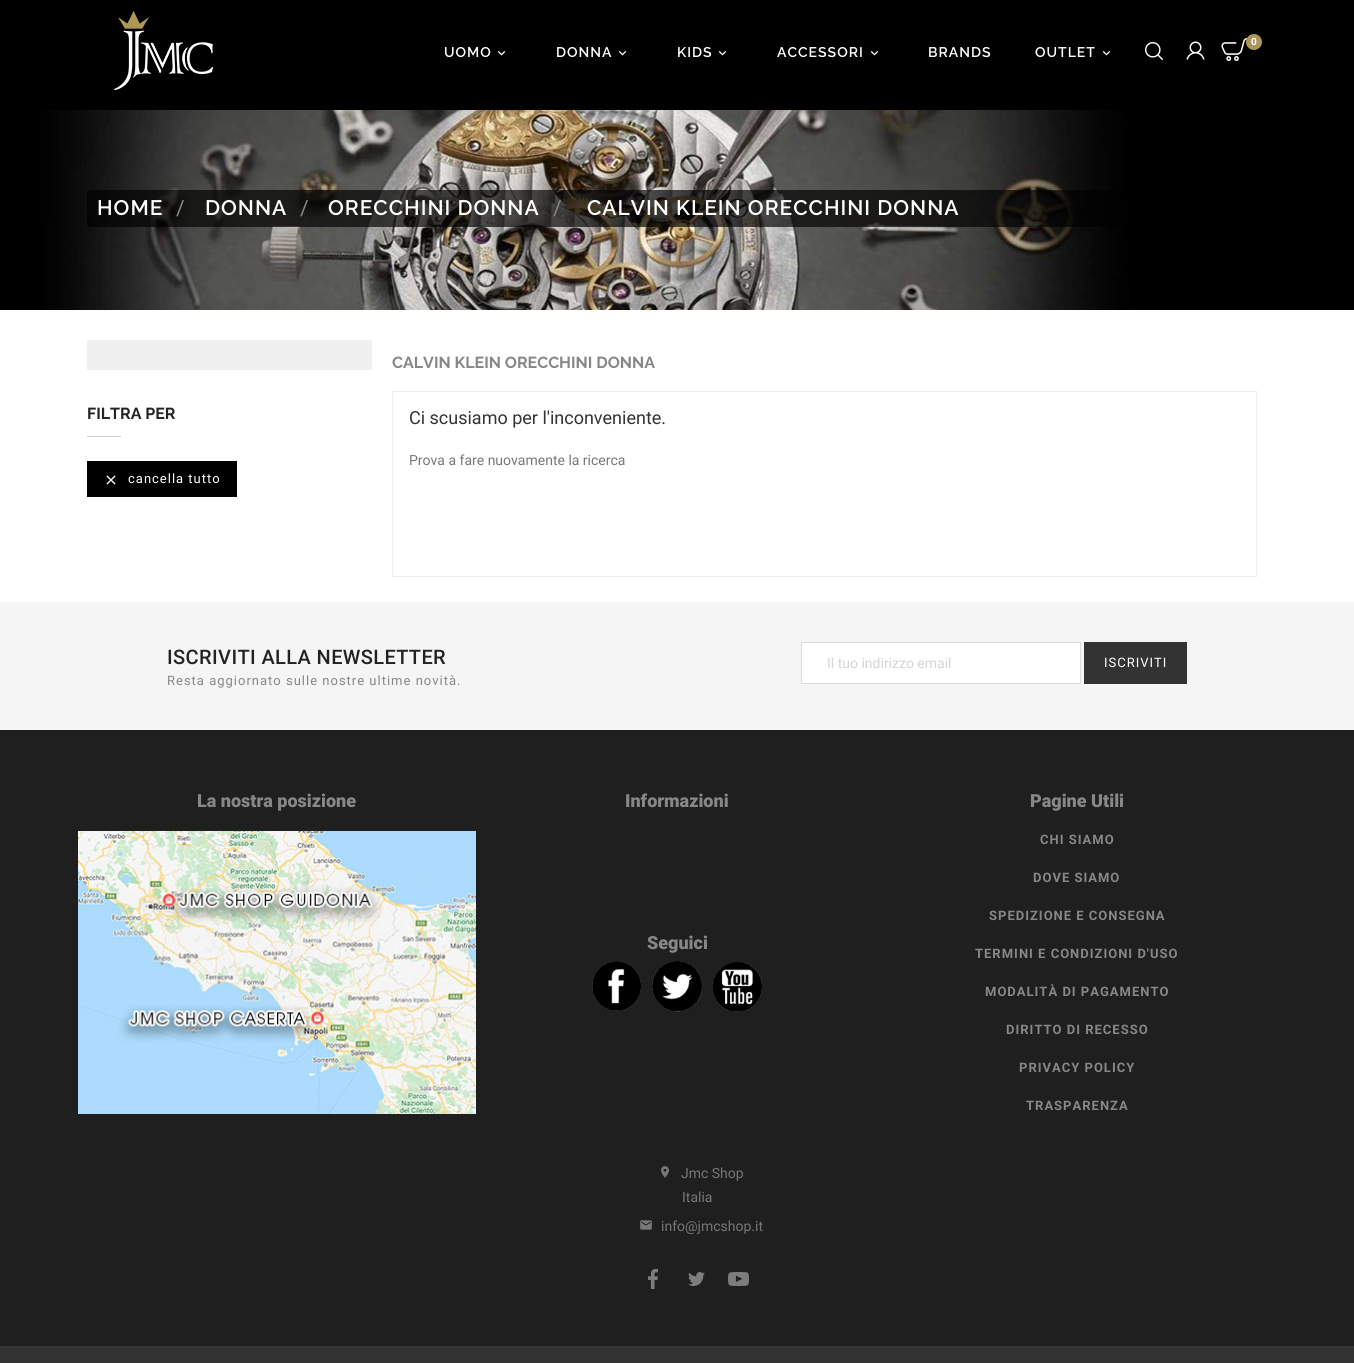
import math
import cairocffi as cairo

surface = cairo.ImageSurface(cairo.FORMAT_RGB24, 1354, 1363)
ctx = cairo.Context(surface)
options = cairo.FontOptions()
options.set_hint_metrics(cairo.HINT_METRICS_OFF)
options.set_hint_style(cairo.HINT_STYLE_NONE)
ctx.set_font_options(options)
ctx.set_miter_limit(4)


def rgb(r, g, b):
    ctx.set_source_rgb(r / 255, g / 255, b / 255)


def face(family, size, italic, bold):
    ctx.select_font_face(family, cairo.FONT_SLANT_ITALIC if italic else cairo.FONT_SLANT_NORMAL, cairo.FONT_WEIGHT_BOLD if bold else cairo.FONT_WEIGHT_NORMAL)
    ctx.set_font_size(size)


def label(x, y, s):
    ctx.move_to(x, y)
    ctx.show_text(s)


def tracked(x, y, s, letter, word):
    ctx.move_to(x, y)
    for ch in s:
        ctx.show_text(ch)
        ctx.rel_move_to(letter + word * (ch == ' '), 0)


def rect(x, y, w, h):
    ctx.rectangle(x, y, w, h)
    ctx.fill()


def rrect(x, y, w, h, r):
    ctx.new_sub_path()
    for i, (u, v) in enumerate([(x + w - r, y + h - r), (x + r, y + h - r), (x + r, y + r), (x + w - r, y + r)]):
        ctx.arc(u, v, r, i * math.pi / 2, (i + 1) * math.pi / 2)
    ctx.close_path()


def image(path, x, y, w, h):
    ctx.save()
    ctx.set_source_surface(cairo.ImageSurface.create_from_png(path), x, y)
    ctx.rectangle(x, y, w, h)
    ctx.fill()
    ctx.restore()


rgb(255, 255, 255)
ctx.paint()
rgb(0, 0, 0)
rect(0, 0, 1354, 110)
image('image0.png', 114, 11, 100, 79)
image('image1.png', 1145, 42, 18, 18)
image('image2.png', 1186, 41, 19, 19)
image('image3.png', 1221, 38, 27, 23)
rgb(172, 150, 89)
ctx.arc(1254, 42, 8, 0, 2 * math.pi)
ctx.fill()
face('Roboto', 10, 0, 1)
rgb(255, 255, 255)
label(1251, 45, '0')
face('Raleway SemiBold', 14, 0, 0)
tracked(444, 57, 'UOMO', 1, 0)
image('image4.png', 497, 51, 9, 5)
tracked(556, 57, 'DONNA', 1, 0)
image('image4.png', 618, 51, 9, 5)
tracked(677, 57, 'KIDS', 1, 0)
image('image4.png', 718, 51, 9, 5)
tracked(777, 57, 'ACCESSORI', 1, 0)
image('image4.png', 870, 51, 9, 5)
tracked(928, 57, 'BRANDS', 1, 0)
tracked(1035, 57, 'OUTLET', 1, 0)
image('image4.png', 1102, 51, 9, 5)
image('image5.png', 0, 110, 1354, 200)
ctx.set_source_rgba(0, 0, 0, 0.67)
rrect(87, 190, 1180, 37, 3)
ctx.fill()
face('Raleway SemiBold', 21, 0, 0)
rgb(255, 255, 255)
tracked(97, 215, 'HOME', 1, 0)
face('Roboto', 21, 0, 0)
rgb(135, 135, 135)
label(176, 215, '/')
face('Raleway SemiBold', 21, 0, 0)
rgb(255, 255, 255)
tracked(205, 215, 'DONNA', 1, 0)
face('Roboto', 21, 0, 0)
rgb(135, 135, 135)
label(300, 215, '/')
face('Raleway SemiBold', 21, 0, 0)
rgb(255, 255, 255)
tracked(328, 215, 'ORECCHINI DONNA', 1, 0)
face('Roboto', 21, 0, 0)
rgb(135, 135, 135)
label(553, 215, '/')
face('Raleway SemiBold', 21, 0, 0)
rgb(255, 255, 255)
tracked(587, 215, 'CALVIN KLEIN ORECCHINI DONNA', 1, 0)
rgb(240, 240, 240)
rect(87, 340, 285, 30)
face('Raleway', 16, 0, 1)
rgb(35, 35, 35)
label(87, 419, 'FILTRA PER')
rgb(204, 204, 204)
rect(87, 436, 34, 1)
rgb(0, 0, 0)
rect(87, 461, 150, 36)
image('image6.png', 106, 475, 10, 10)
face('Roboto', 13, 0, 0)
rgb(255, 255, 255)
tracked(128, 483, 'cancella tutto', 1, 0)
face('Raleway', 16, 0, 1)
rgb(135, 135, 135)
label(392, 368, 'CALVIN KLEIN ORECCHINI DONNA')
ctx.rectangle(392.5, 391.5, 864, 185)
rgb(238, 238, 238)
ctx.set_line_width(1)
ctx.stroke()
face('Roboto', 18, 0, 0)
rgb(51, 51, 51)
label(409, 424, 'Ci scusiamo per l\'inconveniente.')
face('Roboto', 14, 0, 0)
rgb(119, 119, 119)
label(409, 465, 'Prova a fare nuovamente la ricerca')
rgb(245, 245, 245)
rect(0, 602, 1354, 128)
face('Roboto Medium', 20, 0, 0)
rgb(35, 35, 35)
tracked(167, 664, 'ISCRIVITI ALLA NEWSLETTER', 0.4, 0)
face('Roboto', 13, 0, 0)
rgb(135, 135, 135)
tracked(167, 685, 'Resta aggiornato sulle nostre ultime novità.', 1, 0)
rgb(255, 255, 255)
ctx.rectangle(801.5, 642.5, 279, 41)
ctx.fill_preserve()
rgb(220, 220, 220)
ctx.stroke()
face('Roboto', 14, 0, 0)
rgb(214, 213, 211)
label(827, 668, 'Il tuo indirizzo email')
rgb(51, 51, 51)
rect(1084, 642, 103, 42)
face('Roboto', 13, 0, 0)
rgb(255, 255, 255)
tracked(1104, 667, 'ISCRIVITI', 1, 0)
rgb(31, 31, 31)
rect(0, 730, 1354, 616)
face('Roboto Black', 18, 0, 0)
rgb(135, 135, 135)
label(197, 807, 'La nostra posizione')
label(625, 807, 'Informazioni')
label(1030, 807, 'Pagine Utili')
image('image7.png', 78, 831, 398, 283)
label(647, 949, 'Seguici')
image('image8.png', 592, 961, 49, 50)
image('image9.png', 652, 961, 50, 51)
image('image10.png', 712, 961, 50, 51)
face('Roboto', 13, 0, 1)
tracked(1040, 844, 'CHI SIAMO', 1, 0)
tracked(1033, 882, 'DOVE SIAMO', 1, 0)
tracked(989, 920, 'SPEDIZIONE E CONSEGNA', 1, 0)
tracked(975, 958, 'TERMINI E CONDIZIONI D\'USO', 1, 0)
tracked(985, 996, 'MODALITÀ DI PAGAMENTO', 1, 0)
tracked(1006, 1034, 'DIRITTO DI RECESSO', 1, 0)
tracked(1019, 1072, 'PRIVACY POLICY', 1, 0)
tracked(1026, 1110, 'TRASPARENZA', 1, 0)
image('image11.png', 661, 1166, 8, 12)
face('Roboto', 14, 0, 0)
rgb(119, 119, 119)
label(681, 1178, 'Jmc Shop')
label(682, 1202, 'Italia')
image('image12.png', 640, 1220, 12, 10)
label(661, 1231, 'info@jmcshop.it')
image('image13.png', 648, 1269, 10, 20)
image('image14.png', 688, 1272, 17, 14)
image('image15.png', 728, 1272, 21, 14)
rgb(51, 51, 51)
rect(0, 1346, 1354, 17)
surface.write_to_png('render.png')
